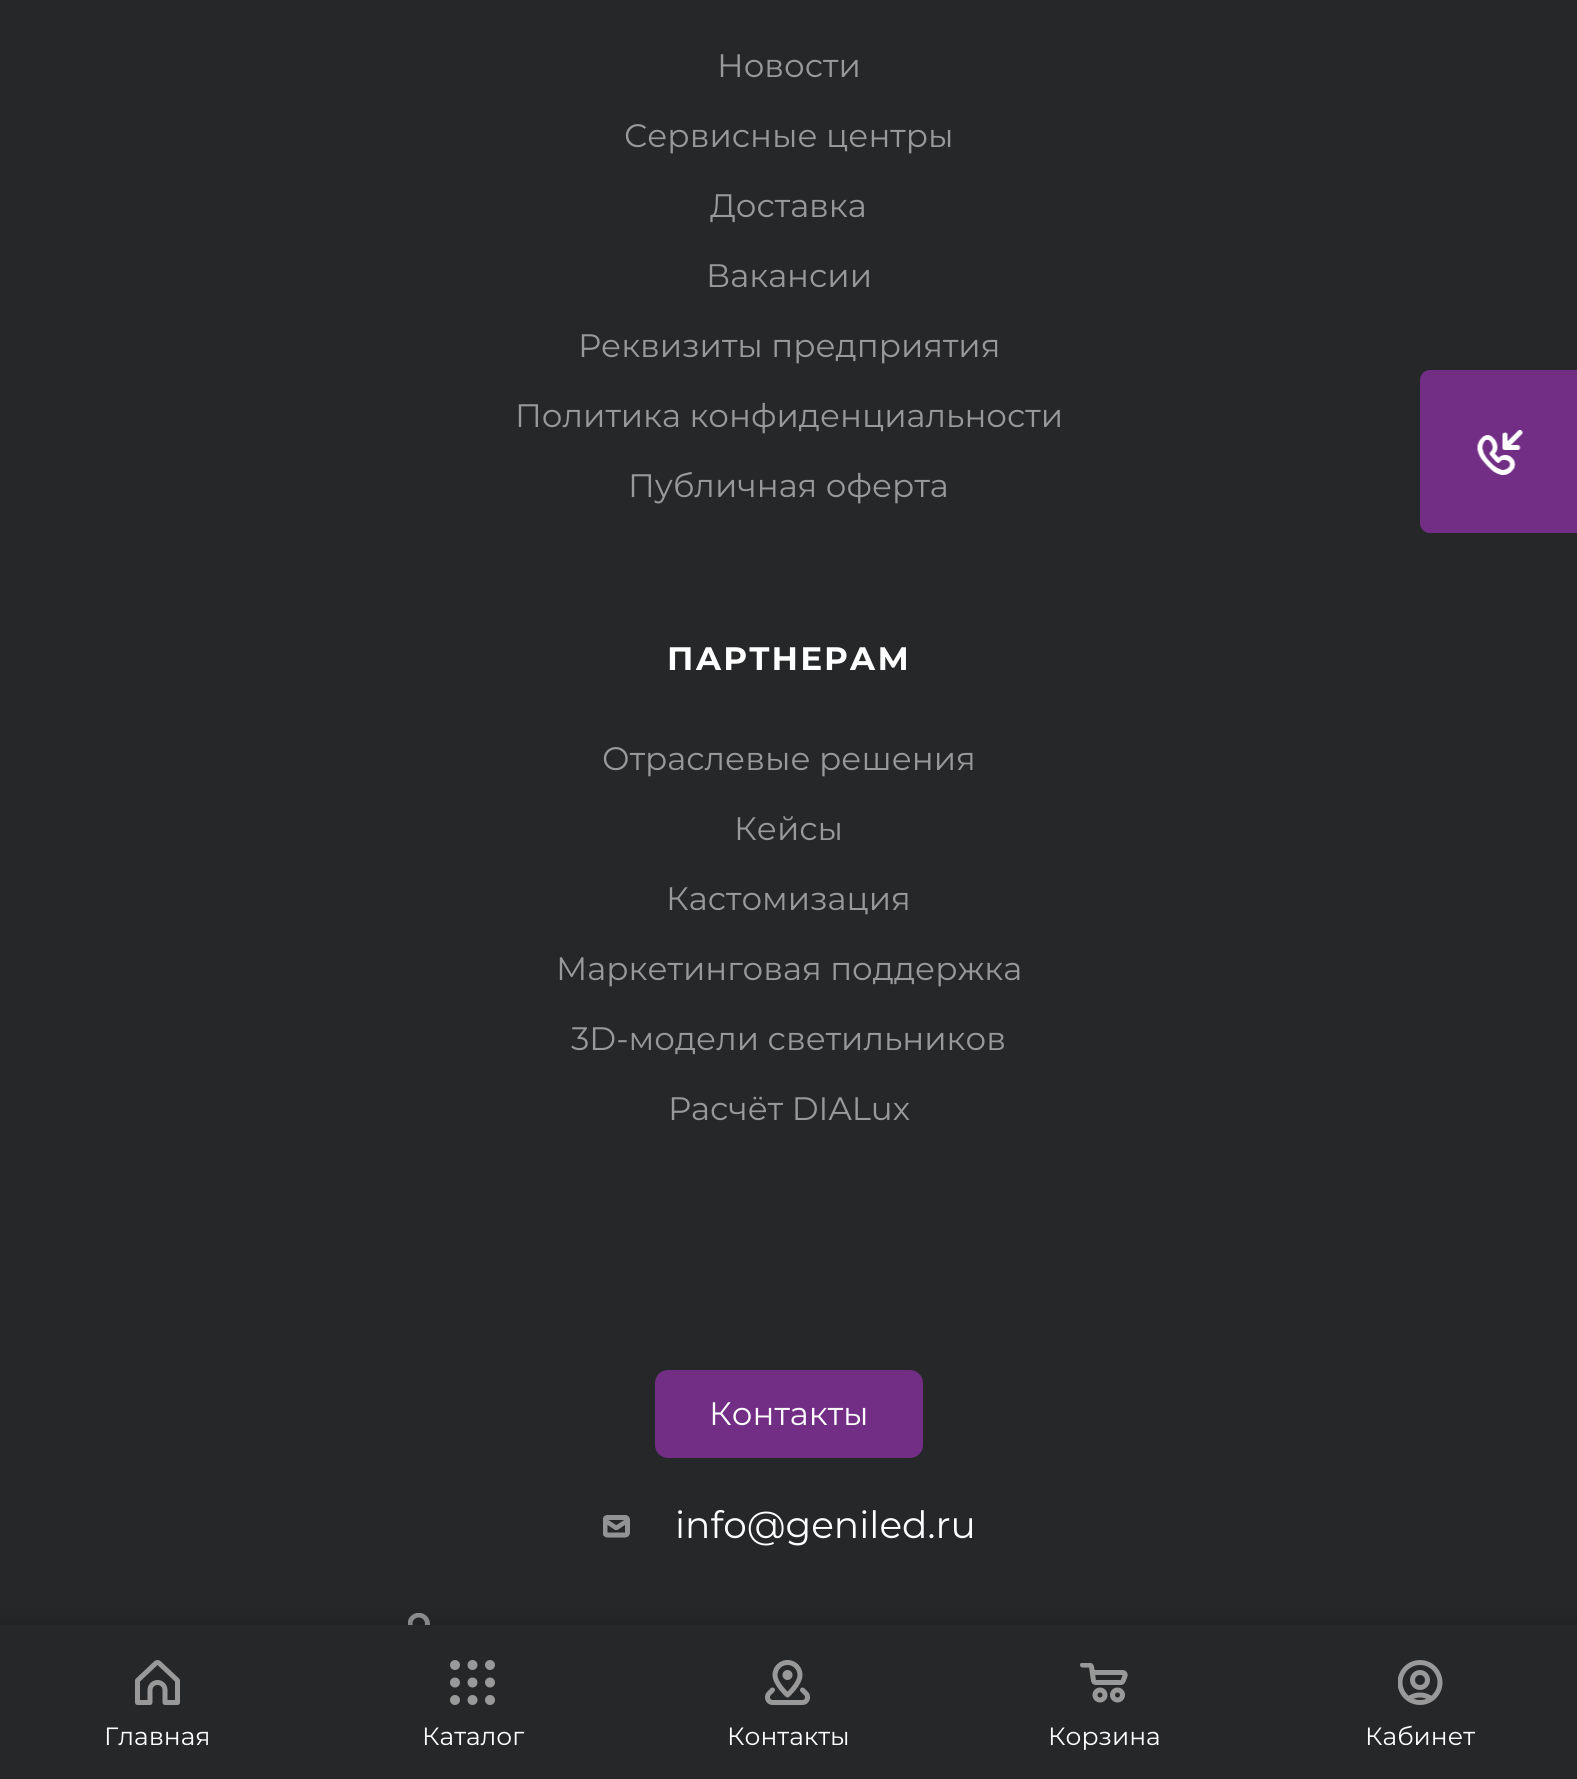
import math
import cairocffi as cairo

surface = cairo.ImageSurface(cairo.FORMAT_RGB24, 1577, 1779)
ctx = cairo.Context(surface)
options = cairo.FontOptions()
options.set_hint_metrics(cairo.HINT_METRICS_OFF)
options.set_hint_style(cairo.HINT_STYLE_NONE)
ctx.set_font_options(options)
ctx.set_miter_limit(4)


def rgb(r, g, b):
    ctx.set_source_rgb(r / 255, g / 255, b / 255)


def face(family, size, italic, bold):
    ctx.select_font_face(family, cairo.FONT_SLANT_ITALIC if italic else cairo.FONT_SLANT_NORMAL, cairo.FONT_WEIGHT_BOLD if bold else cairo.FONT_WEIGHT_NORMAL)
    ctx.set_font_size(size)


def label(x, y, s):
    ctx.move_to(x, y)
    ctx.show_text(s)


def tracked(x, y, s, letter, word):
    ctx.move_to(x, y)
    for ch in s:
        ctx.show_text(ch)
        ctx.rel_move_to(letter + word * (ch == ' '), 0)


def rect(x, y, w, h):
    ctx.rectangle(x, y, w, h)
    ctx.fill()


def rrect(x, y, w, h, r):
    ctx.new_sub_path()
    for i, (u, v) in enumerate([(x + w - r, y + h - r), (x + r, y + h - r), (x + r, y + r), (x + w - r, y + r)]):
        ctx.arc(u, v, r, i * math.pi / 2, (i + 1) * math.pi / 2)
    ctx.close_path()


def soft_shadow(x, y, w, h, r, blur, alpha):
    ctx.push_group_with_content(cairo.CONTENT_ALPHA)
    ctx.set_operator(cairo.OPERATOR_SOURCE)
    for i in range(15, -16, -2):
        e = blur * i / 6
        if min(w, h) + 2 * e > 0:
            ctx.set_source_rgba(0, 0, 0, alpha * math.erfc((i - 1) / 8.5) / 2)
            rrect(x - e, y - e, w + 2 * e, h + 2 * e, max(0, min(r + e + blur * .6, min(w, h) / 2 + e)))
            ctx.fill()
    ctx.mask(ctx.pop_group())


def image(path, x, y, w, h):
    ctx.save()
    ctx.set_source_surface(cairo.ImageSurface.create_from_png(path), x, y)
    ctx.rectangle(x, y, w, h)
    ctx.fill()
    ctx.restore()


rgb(37, 39, 41)
ctx.paint()
face('Montserrat', 32.5, 0, 0)
rgb(153, 153, 153)
label(717, 77, 'Новости')
label(624, 147, 'Сервисные центры')
label(710, 217, 'Доставка')
label(706, 287, 'Вакансии')
label(578, 357, 'Реквизиты предприятия')
label(515, 427, 'Политика конфиденциальности')
label(628, 497, 'Публичная оферта')
face('Montserrat', 32.5, 0, 1)
rgb(255, 255, 255)
tracked(667, 670, 'ПАРТНЕРАМ', 2, 0)
face('Montserrat', 32.5, 0, 0)
rgb(153, 153, 153)
label(602, 770, 'Отраслевые решения')
label(734, 840, 'Кейсы')
label(666, 910, 'Кастомизация')
label(556, 980, 'Маркетинговая поддержка')
label(571, 1050, '3D-модели светильников')
label(668, 1120, 'Расчёт DIALux')
rgb(114, 46, 133)
rrect(656.5, 1371.5, 265, 85, 11.5)
ctx.fill_preserve()
ctx.set_line_width(3)
ctx.stroke()
rgb(255, 255, 255)
label(709, 1425, 'Контакты')
image('image0.png', 603, 1515, 27, 23)
face('Montserrat', 37.5, 0, 0)
label(675, 1538, 'info@geniled.ru')
image('image1.png', 408, 1613, 22, 12)
rgb(114, 46, 133)
ctx.new_path()
ctx.move_to(1430, 370)
ctx.line_to(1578, 370)
ctx.line_to(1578, 533)
ctx.line_to(1430, 533)
ctx.curve_to(1424.5, 533, 1420, 528.5, 1420, 523)
ctx.line_to(1420, 380)
ctx.curve_to(1420, 374.5, 1424.5, 370, 1430, 370)
ctx.close_path()
ctx.fill()
image('image2.png', 1477, 430, 46, 45)
rgb(0, 0, 0)
soft_shadow(0, 1620, 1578, 155, 0, 10, 0.15)
rgb(37, 39, 41)
rect(0, 1625, 1577, 152)
image('image3.png', 135, 1660, 45, 45)
face('Montserrat', 25, 0, 0)
rgb(255, 255, 255)
label(104, 1745, 'Главная')
image('image4.png', 450, 1660, 45, 45)
label(422, 1745, 'Каталог')
image('image5.png', 765, 1660, 45, 45)
label(727, 1745, 'Контакты')
image('image6.png', 1080, 1663, 48, 40)
label(1048, 1745, 'Корзина')
image('image7.png', 1398, 1660, 45, 45)
label(1365, 1745, 'Кабинет')
surface.write_to_png('render.png')
